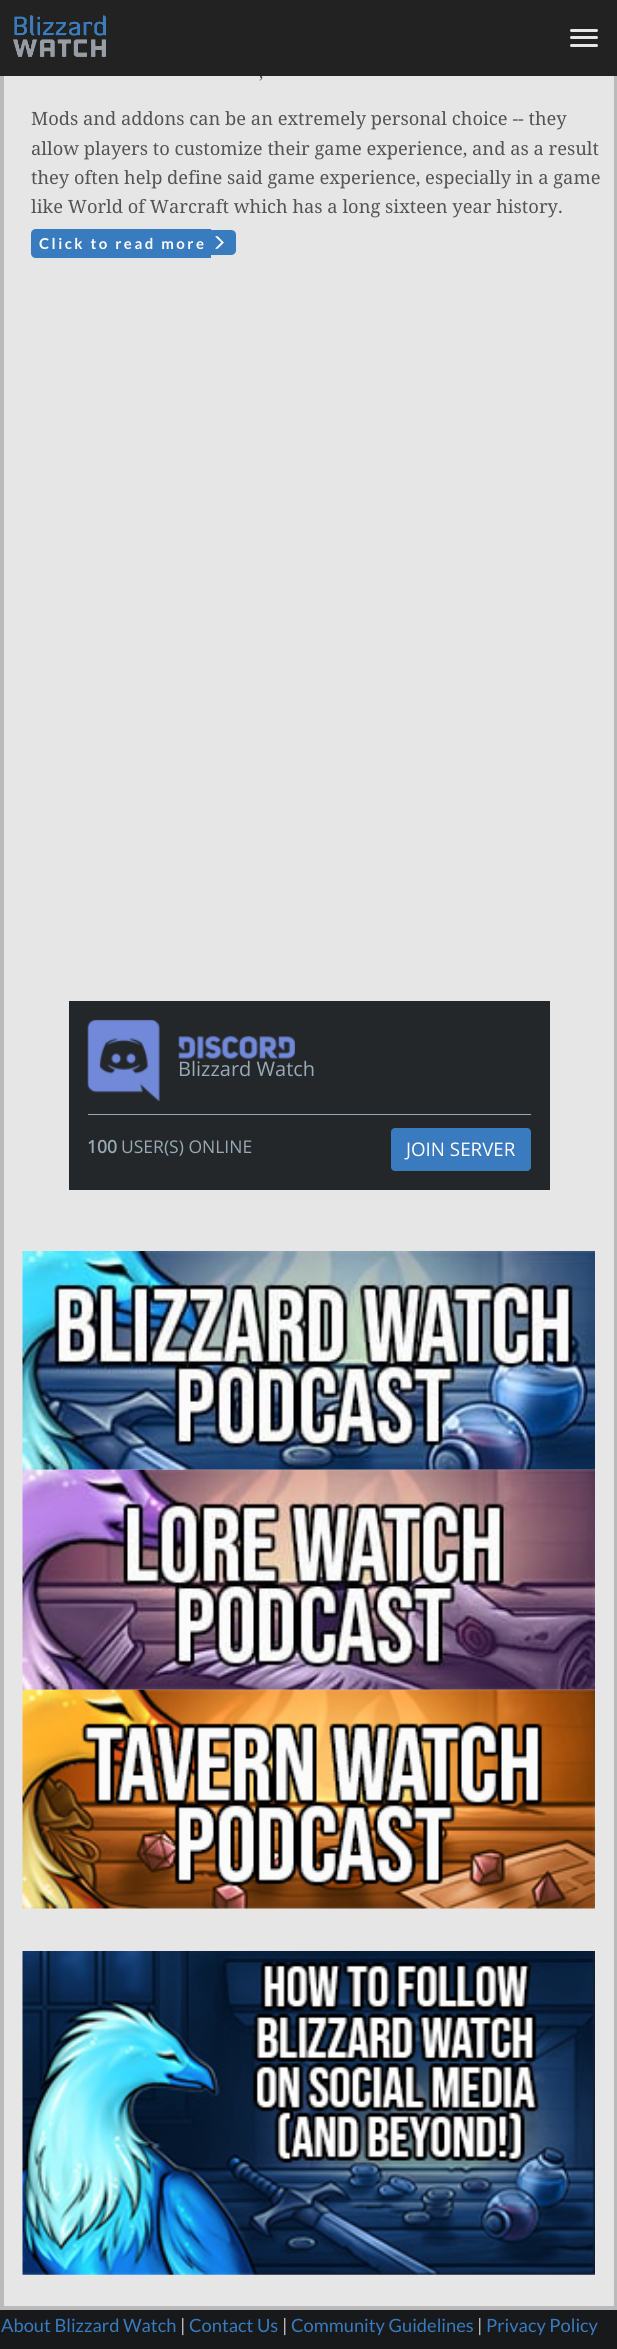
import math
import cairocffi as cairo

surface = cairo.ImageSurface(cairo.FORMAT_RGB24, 617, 2349)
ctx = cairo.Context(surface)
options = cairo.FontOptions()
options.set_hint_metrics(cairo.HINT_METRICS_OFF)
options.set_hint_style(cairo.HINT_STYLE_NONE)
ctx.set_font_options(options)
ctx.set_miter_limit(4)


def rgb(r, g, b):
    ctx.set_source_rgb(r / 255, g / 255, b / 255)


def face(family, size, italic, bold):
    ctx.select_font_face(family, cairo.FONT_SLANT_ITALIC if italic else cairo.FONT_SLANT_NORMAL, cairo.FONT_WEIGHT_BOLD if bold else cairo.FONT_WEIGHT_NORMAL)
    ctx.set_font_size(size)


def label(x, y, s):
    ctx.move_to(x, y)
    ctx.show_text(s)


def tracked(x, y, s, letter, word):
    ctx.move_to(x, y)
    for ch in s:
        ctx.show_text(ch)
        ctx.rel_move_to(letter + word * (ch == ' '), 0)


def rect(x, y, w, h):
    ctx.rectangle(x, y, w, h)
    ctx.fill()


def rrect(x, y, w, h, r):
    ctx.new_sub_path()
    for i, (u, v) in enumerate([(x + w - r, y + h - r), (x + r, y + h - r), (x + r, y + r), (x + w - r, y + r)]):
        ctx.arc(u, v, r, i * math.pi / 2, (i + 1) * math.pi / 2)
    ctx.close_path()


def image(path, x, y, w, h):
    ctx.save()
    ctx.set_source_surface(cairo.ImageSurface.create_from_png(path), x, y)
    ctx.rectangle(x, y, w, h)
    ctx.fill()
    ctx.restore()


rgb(23, 25, 27)
ctx.paint()
rgb(230, 230, 230)
rect(4, 76, 610, 2230)
ctx.rectangle(2, -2, 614, 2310)
rgb(186, 186, 186)
ctx.set_line_width(4)
ctx.stroke()
face('Droid Serif', 17, 0, 0)
rgb(84, 84, 84)
label(259, 78, ',')
rgb(34, 34, 34)
rect(0, 0, 617, 76)
image('image0.png', 13, 15, 93, 42)
rgb(230, 230, 230)
rrect(570, 29, 28, 3, 1.5)
ctx.fill()
rrect(570, 36, 28, 3, 1.5)
ctx.fill()
rrect(570, 44, 28, 3, 1.5)
ctx.fill()
face('Droid Serif', 18.3, 0, 0)
rgb(84, 84, 84)
label(31, 125, 'Mods and addons can be an extremely personal choice -- they')
label(31, 155, 'allow players to customize their game experience, and as a result')
label(31, 184, 'they often help define said game experience, especially in a game')
label(31, 213, 'like World of Warcraft which has a long sixteen year history.')
rgb(56, 123, 191)
ctx.new_path()
ctx.move_to(36, 229)
ctx.line_to(211, 229)
ctx.line_to(211, 258)
ctx.line_to(36, 258)
ctx.curve_to(33, 258, 31, 256, 31, 253)
ctx.line_to(31, 234)
ctx.curve_to(31, 231, 33, 229, 36, 229)
ctx.close_path()
ctx.fill()
ctx.new_path()
ctx.move_to(211, 230)
ctx.line_to(231, 230)
ctx.curve_to(234, 230, 236, 232, 236, 235)
ctx.line_to(236, 250)
ctx.curve_to(236, 253, 234, 255, 231, 255)
ctx.line_to(211, 255)
ctx.close_path()
ctx.fill()
face('Lato', 15, 0, 1)
rgb(255, 255, 255)
tracked(39, 249, 'Click to read more', 2.5, 0)
image('image1.png', 215, 236, 9, 13)
rgb(35, 39, 42)
rect(69, 1001, 481, 189)
rgb(153, 170, 181)
rect(88, 1114, 443, 1)
image('image2.png', 87, 1019, 73, 82)
image('image3.png', 178, 1036, 117, 23)
face('Open Sans', 20, 0, 0)
label(178, 1076, 'Blizzard Watch')
face('Open Sans', 17.5, 0, 1)
label(87, 1153, '100')
face('Open Sans', 17.5, 0, 0)
label(121, 1153, 'USER(S) ONLINE')
rgb(58, 122, 190)
rrect(391, 1128, 140, 43, 4)
ctx.fill()
face('Open Sans', 18.75, 0, 0)
rgb(255, 255, 255)
label(406, 1156, 'JOIN SERVER')
image('image4.png', 22, 1251, 573, 219)
image('image5.png', 22, 1469, 573, 221)
image('image6.png', 22, 1689, 573, 220)
image('image7.png', 22, 1951, 573, 324)
face('Lato', 18.3, 0, 0)
rgb(56, 123, 191)
label(1, 2332, 'About Blizzard Watch')
rgb(204, 204, 204)
label(180, 2332, '|')
rgb(56, 123, 191)
label(189, 2332, 'Contact Us')
rgb(204, 204, 204)
label(282, 2332, '|')
rgb(56, 123, 191)
label(291, 2332, 'Community Guidelines')
rgb(204, 204, 204)
label(477, 2332, '|')
rgb(56, 123, 191)
label(486, 2332, 'Privacy Policy')
surface.write_to_png('render.png')
